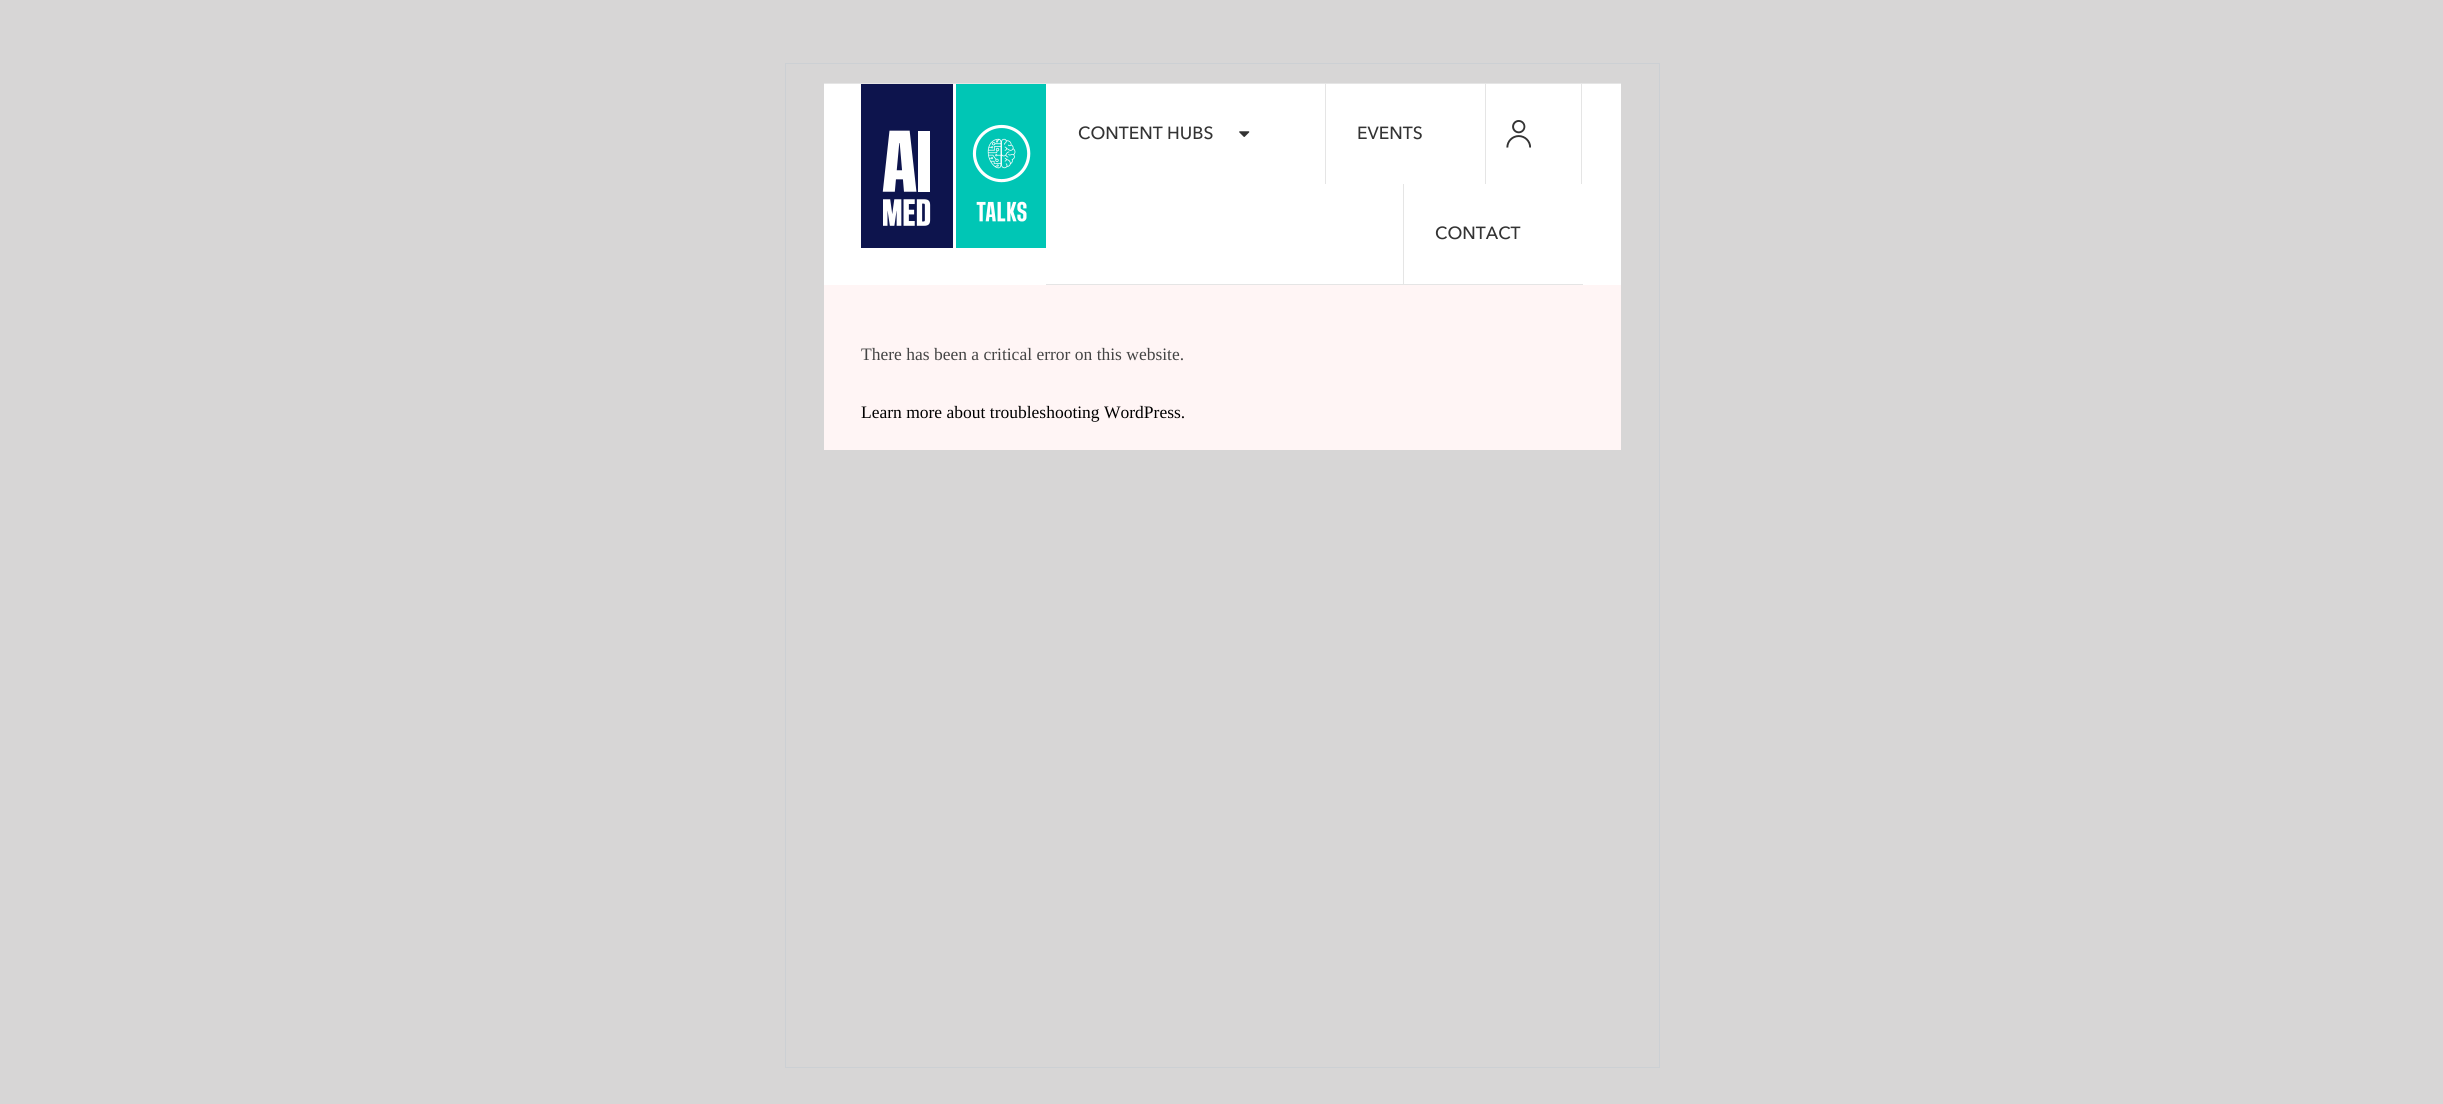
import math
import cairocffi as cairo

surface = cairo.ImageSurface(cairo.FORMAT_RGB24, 2443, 1104)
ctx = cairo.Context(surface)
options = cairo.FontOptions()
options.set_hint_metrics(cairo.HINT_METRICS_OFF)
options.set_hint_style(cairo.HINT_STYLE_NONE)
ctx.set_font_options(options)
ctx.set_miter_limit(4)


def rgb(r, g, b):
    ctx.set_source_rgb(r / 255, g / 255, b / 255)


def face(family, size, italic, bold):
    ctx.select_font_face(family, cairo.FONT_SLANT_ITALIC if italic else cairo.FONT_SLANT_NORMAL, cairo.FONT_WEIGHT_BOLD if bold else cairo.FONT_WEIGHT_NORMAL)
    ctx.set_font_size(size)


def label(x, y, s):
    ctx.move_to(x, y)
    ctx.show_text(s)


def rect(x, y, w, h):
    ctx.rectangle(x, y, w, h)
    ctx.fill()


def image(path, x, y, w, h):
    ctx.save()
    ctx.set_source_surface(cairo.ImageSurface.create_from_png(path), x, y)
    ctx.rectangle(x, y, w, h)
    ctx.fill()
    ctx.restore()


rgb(215, 214, 214)
ctx.paint()
ctx.rectangle(785.5, 63.5, 874, 1004)
rgb(204, 208, 212)
ctx.set_line_width(1)
ctx.stroke()
rgb(255, 255, 255)
rect(824, 84, 797, 201)
rgb(229, 229, 229)
rect(824, 83, 797, 1)
image('image0.png', 861, 84, 185, 164)
rect(1046, 284, 537, 1)
rect(1325, 84, 1, 100)
face('Avenir Next Medium', 17.5, 0, 0)
rgb(51, 51, 51)
label(1078, 139, 'CONTENT HUBS')
image('image1.png', 1239, 131, 11, 6)
rgb(229, 229, 229)
rect(1485, 84, 1, 100)
rgb(51, 51, 51)
label(1357, 139, 'EVENTS')
rgb(229, 229, 229)
rect(1581, 84, 1, 100)
image('image2.png', 1506, 120, 25, 28)
rect(1403, 184, 1, 100)
rgb(51, 51, 51)
label(1435, 239, 'CONTACT')
rgb(255, 245, 245)
rect(824, 285, 797, 165)
face('Liberation Serif', 17.5, 0, 0)
rgb(68, 68, 68)
label(861, 360, 'There has been a critical error on this website.')
rgb(0, 0, 0)
label(861, 418, 'Learn more about troubleshooting WordPress.')
surface.write_to_png('render.png')
